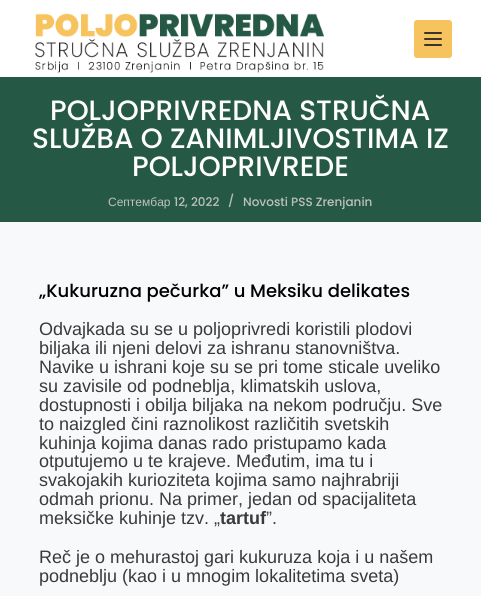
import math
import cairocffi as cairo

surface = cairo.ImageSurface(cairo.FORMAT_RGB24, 481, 596)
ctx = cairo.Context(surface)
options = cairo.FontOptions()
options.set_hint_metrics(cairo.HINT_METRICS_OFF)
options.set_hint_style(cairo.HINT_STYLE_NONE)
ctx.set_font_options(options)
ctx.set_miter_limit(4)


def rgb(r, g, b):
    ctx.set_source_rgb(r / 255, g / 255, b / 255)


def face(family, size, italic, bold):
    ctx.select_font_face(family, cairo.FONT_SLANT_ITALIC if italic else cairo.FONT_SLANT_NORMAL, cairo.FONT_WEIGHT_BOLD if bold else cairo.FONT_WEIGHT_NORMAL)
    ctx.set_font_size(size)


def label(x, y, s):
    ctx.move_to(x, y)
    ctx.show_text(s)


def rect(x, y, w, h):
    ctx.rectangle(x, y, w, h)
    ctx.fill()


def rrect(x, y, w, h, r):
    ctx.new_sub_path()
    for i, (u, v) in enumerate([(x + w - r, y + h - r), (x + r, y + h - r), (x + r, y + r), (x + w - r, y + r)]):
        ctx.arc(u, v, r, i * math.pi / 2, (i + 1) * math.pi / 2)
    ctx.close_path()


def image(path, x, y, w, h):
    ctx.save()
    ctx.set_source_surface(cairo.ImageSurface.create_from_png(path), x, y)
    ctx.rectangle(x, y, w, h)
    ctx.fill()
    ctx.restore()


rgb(248, 249, 251)
ctx.paint()
rgb(255, 255, 255)
rect(0, 0, 481, 77)
image('image0.png', 35, 13, 289, 60)
rgb(247, 195, 95)
rrect(414, 20, 38, 38, 3)
ctx.fill()
rgb(56, 53, 44)
rrect(424, 32, 18, 2, 1)
ctx.fill()
rrect(424, 38, 18, 2, 1)
ctx.fill()
rrect(424, 44, 18, 2, 1)
ctx.fill()
rgb(37, 89, 70)
rect(0, 77, 481, 145)
face('Poppins Medium', 28, 0, 0)
rgb(254, 254, 254)
label(50, 120, 'POLJOPRIVREDNA STRUČNA')
label(32, 148, 'SLUŽBA O ZANIMLJIVOSTIMA IZ')
label(132, 176, 'POLJOPRIVREDE')
face('Liberation Sans', 12, 0, 0)
rgb(192, 192, 192)
label(108, 206, 'Септембар')
face('Poppins Medium', 12, 0, 0)
label(174, 206, '12, 2022')
label(228, 205, '/')
label(243, 206, 'Novosti PSS Zrenjanin')
face('Poppins Medium', 18, 0, 0)
rgb(0, 0, 0)
label(39, 297, '„Kukuruzna pečurka” u Meksiku delikates')
face('Liberation Sans', 18, 0, 0)
rgb(56, 58, 59)
label(39, 335, 'Odvajkada su se u poljoprivredi koristili plodovi')
label(39, 354, 'biljaka ili njeni delovi za ishranu stanovništva.')
label(39, 373, 'Navike u ishrani koje su se pri tome sticale uveliko')
label(39, 392, 'su zavisile od podneblja, klimatskih uslova,')
label(39, 411, 'dostupnosti i obilja biljaka na nekom području. Sve')
label(39, 430, 'to naizgled čini raznolikost različitih svetskih')
label(39, 449, 'kuhinja kojima danas rado pristupamo kada')
label(39, 467, 'otputujemo u te krajeve. Međutim, ima tu i')
label(39, 486, 'svakojakih kurioziteta kojima samo najhrabriji')
label(39, 505, 'odmah prionu. Na primer, jedan od spacijaliteta')
label(39, 524, 'meksičke kuhinje tzv. „')
face('Liberation Sans', 18, 0, 1)
label(220, 524, 'tartuf')
face('Liberation Sans', 18, 0, 0)
label(266, 524, '”.')
label(39, 563, 'Reč je o mehurastoj gari kukuruza koja i u našem')
label(39, 582, 'podneblju (kao i u mnogim lokalitetima sveta)')
surface.write_to_png('render.png')
